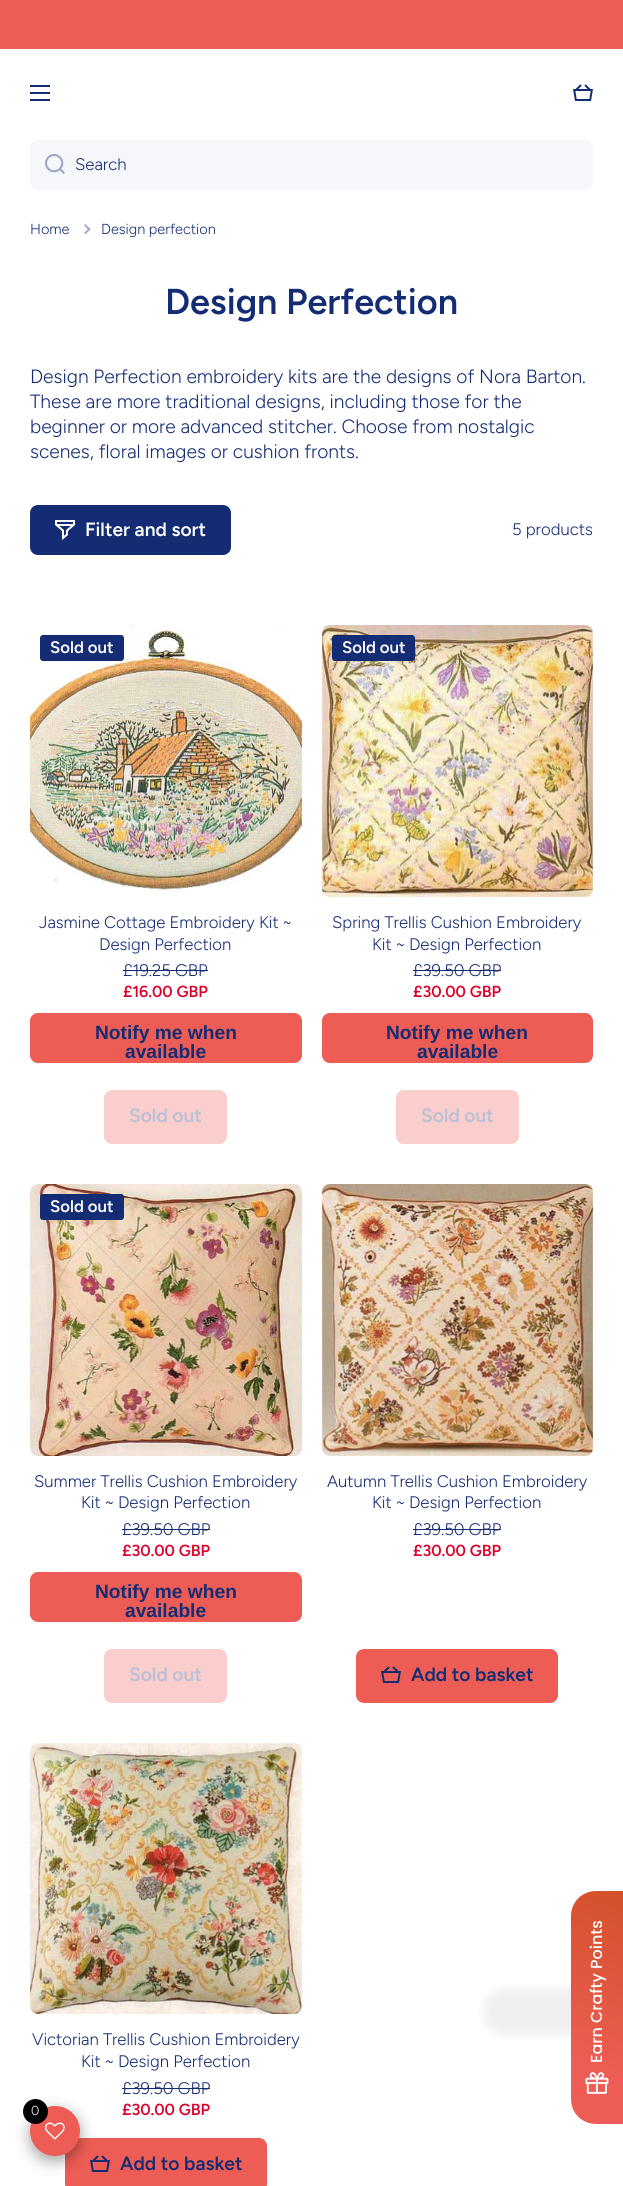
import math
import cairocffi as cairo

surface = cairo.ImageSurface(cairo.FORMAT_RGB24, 623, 2186)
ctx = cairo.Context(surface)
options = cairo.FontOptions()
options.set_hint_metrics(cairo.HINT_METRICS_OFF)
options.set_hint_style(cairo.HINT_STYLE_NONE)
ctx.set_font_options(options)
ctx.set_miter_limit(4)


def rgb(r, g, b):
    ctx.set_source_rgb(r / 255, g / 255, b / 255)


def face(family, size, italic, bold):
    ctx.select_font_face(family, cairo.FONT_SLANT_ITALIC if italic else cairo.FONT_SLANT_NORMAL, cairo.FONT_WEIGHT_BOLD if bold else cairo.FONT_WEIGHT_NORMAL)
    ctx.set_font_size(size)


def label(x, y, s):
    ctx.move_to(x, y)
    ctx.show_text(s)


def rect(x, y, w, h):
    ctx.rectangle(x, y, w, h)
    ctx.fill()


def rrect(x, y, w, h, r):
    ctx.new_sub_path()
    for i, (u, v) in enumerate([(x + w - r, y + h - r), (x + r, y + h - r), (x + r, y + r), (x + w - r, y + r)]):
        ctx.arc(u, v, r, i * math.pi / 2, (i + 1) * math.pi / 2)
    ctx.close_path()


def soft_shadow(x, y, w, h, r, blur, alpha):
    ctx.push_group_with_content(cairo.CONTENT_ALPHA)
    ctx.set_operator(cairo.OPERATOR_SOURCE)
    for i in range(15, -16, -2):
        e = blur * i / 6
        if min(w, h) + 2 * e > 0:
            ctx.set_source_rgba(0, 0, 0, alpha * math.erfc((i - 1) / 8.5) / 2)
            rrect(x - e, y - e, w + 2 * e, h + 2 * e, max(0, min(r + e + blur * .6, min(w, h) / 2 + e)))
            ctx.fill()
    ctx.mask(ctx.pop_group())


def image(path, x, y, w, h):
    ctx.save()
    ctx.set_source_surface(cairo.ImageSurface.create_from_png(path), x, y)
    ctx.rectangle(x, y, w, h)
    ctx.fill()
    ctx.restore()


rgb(255, 255, 255)
ctx.paint()
rgb(237, 93, 85)
rect(0, 0, 623, 49)
rgb(20, 44, 115)
rect(30, 85, 20, 2)
rect(30, 92, 20, 2)
rect(30, 99, 20, 2)
image('image0.png', 573, 84, 20, 17)
rgb(246, 247, 250)
rrect(30, 140, 563, 50, 8)
ctx.fill()
image('image1.png', 45, 154, 20, 20)
face('Figtree Light', 16.75, 0, 0)
rgb(20, 44, 115)
label(75, 170, 'Search')
face('Figtree Light', 14.5, 0, 0)
label(30, 234, 'Home')
image('image2.png', 84, 224, 7, 11)
label(101, 234, 'Design perfection')
face('Figtree SemiBold', 36, 0, 0)
label(165, 314, 'Design Perfection')
face('Figtree Light', 19.2, 0, 0)
label(30, 383, 'Design Perfection embroidery kits are the designs of Nora Barton.')
label(30, 408, 'These are more traditional designs, including those for the')
label(30, 433, 'beginner or more advanced stitcher. Choose from nostalgic')
label(30, 458, 'scenes, floral images or cushion fronts.')
rrect(30, 505, 201, 50, 8)
ctx.fill()
image('image3.png', 55, 520, 20, 20)
face('Figtree SemiBold', 19.2, 0, 0)
rgb(255, 255, 255)
label(85, 536, 'Filter and sort')
face('Figtree Light', 16.75, 0, 0)
rgb(20, 44, 115)
label(512, 535, '5 products')
image('image4.png', 30, 625, 272, 269)
rrect(40, 635, 84, 26, 3)
ctx.fill()
face('Figtree SemiBold', 16.75, 0, 0)
rgb(255, 255, 255)
label(50, 653, 'Sold out')
face('Figtree Light', 16.75, 0, 0)
rgb(20, 44, 115)
label(39, 928, 'Jasmine Cottage Embroidery Kit ~')
label(99, 950, 'Design Perfection')
label(123, 976, '£19.25 GBP')
rect(123, 970, 85, 1)
face('Figtree SemiBold', 16, 0, 0)
rgb(221, 0, 40)
label(123, 997, '£16.00 GBP')
rgb(237, 93, 85)
rrect(30, 1013, 272, 50, 8)
ctx.fill()
face('Liberation Sans', 19.2, 0, 1)
rgb(20, 44, 115)
label(95, 1039, 'Notify me when')
label(125, 1058, 'available')
rgb(250, 206, 204)
rrect(104, 1090, 123, 54, 8)
ctx.fill()
face('Figtree SemiBold', 19.2, 0, 0)
rgb(185, 192, 213)
label(129, 1122, 'Sold out')
image('image5.png', 322, 625, 271, 272)
rgb(20, 44, 115)
rrect(332, 635, 83, 26, 3)
ctx.fill()
face('Figtree SemiBold', 16.75, 0, 0)
rgb(255, 255, 255)
label(342, 653, 'Sold out')
face('Figtree Light', 16.75, 0, 0)
rgb(20, 44, 115)
label(332, 928, 'Spring Trellis Cushion Embroidery')
label(372, 950, 'Kit ~ Design Perfection')
label(413, 976, '£39.50 GBP')
rect(413, 970, 88, 1)
face('Figtree SemiBold', 16, 0, 0)
rgb(221, 0, 40)
label(413, 997, '£30.00 GBP')
rgb(237, 93, 85)
rrect(322, 1013, 271, 50, 8)
ctx.fill()
face('Liberation Sans', 19.2, 0, 1)
rgb(20, 44, 115)
label(386, 1039, 'Notify me when')
label(417, 1058, 'available')
rgb(250, 206, 204)
rrect(396, 1090, 123, 54, 8)
ctx.fill()
face('Figtree SemiBold', 19.2, 0, 0)
rgb(185, 192, 213)
label(421, 1122, 'Sold out')
image('image6.png', 30, 1184, 272, 272)
rgb(20, 44, 115)
rrect(40, 1194, 84, 26, 3)
ctx.fill()
face('Figtree SemiBold', 16.75, 0, 0)
rgb(255, 255, 255)
label(50, 1212, 'Sold out')
face('Figtree Light', 16.75, 0, 0)
rgb(20, 44, 115)
label(34, 1487, 'Summer Trellis Cushion Embroidery')
label(81, 1508, 'Kit ~ Design Perfection')
label(122, 1535, '£39.50 GBP')
rect(122, 1529, 88, 1)
face('Figtree SemiBold', 16, 0, 0)
rgb(221, 0, 40)
label(122, 1556, '£30.00 GBP')
rgb(237, 93, 85)
rrect(30, 1572, 272, 50, 8)
ctx.fill()
face('Liberation Sans', 19.2, 0, 1)
rgb(20, 44, 115)
label(95, 1598, 'Notify me when')
label(125, 1617, 'available')
rgb(250, 206, 204)
rrect(104, 1649, 123, 54, 8)
ctx.fill()
face('Figtree SemiBold', 19.2, 0, 0)
rgb(185, 192, 213)
label(129, 1681, 'Sold out')
image('image7.png', 322, 1184, 271, 272)
face('Figtree Light', 16.75, 0, 0)
rgb(20, 44, 115)
label(327, 1487, 'Autumn Trellis Cushion Embroidery')
label(372, 1508, 'Kit ~ Design Perfection')
label(413, 1535, '£39.50 GBP')
rect(413, 1529, 88, 1)
face('Figtree SemiBold', 16, 0, 0)
rgb(221, 0, 40)
label(413, 1556, '£30.00 GBP')
rgb(237, 93, 85)
rrect(356, 1649, 202, 54, 8)
ctx.fill()
image('image8.png', 381, 1666, 20, 17)
face('Figtree SemiBold', 19.2, 0, 0)
rgb(20, 44, 115)
label(411, 1681, 'Add to basket')
image('image9.png', 30, 1743, 272, 271)
face('Figtree Light', 16.75, 0, 0)
label(32, 2045, 'Victorian Trellis Cushion Embroidery')
label(81, 2067, 'Kit ~ Design Perfection')
label(122, 2094, '£39.50 GBP')
rect(122, 2088, 88, 1)
face('Figtree SemiBold', 16, 0, 0)
rgb(221, 0, 40)
label(122, 2115, '£30.00 GBP')
rgb(237, 93, 85)
rrect(65, 2138, 202, 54, 8)
ctx.fill()
image('image8.png', 90, 2155, 20, 17)
face('Figtree SemiBold', 19.2, 0, 0)
rgb(20, 44, 115)
label(120, 2170, 'Add to basket')
rgb(68, 68, 68)
soft_shadow(483, 1988, 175, 48, 23, 4, 0.08)
gradient = cairo.LinearGradient(558, 2119, 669, 1806)
gradient.add_color_stop_rgba(0.17, 0.929, 0.365, 0.333, 1)
gradient.add_color_stop_rgba(1, 0.776, 0.294, 0.075, 1)
ctx.set_source(gradient)
ctx.new_path()
ctx.move_to(571, 2099)
ctx.line_to(571, 1916)
ctx.curve_to(571, 1902, 582, 1891, 596, 1891)
ctx.line_to(623, 1891)
ctx.line_to(623, 2124)
ctx.line_to(596, 2124)
ctx.curve_to(582, 2124, 571, 2113, 571, 2099)
ctx.close_path()
ctx.fill()
face('Poppins Medium', 16, 0, 0)
rgb(255, 255, 255)
ctx.save()
ctx.translate(602, 2063)
ctx.rotate(-90 * math.pi / 180)
label(0, 0, 'Earn Crafty Points')
ctx.restore()
image('image10.png', 585, 2072, 24, 22)
rgb(0, 0, 0)
soft_shadow(30, 2111, 50, 50, 25, 7.5, 0.35)
rgb(237, 93, 85)
ctx.arc(55, 2131, 25, 0, 2 * math.pi)
ctx.fill()
image('image11.png', 45, 2122, 20, 18)
rgb(0, 0, 0)
ctx.arc(35.5, 2111.5, 12.5, 0, 2 * math.pi)
ctx.fill()
face('Figtree Light', 13, 0, 0)
rgb(255, 255, 255)
label(31, 2115, '0')
surface.write_to_png('render.png')
